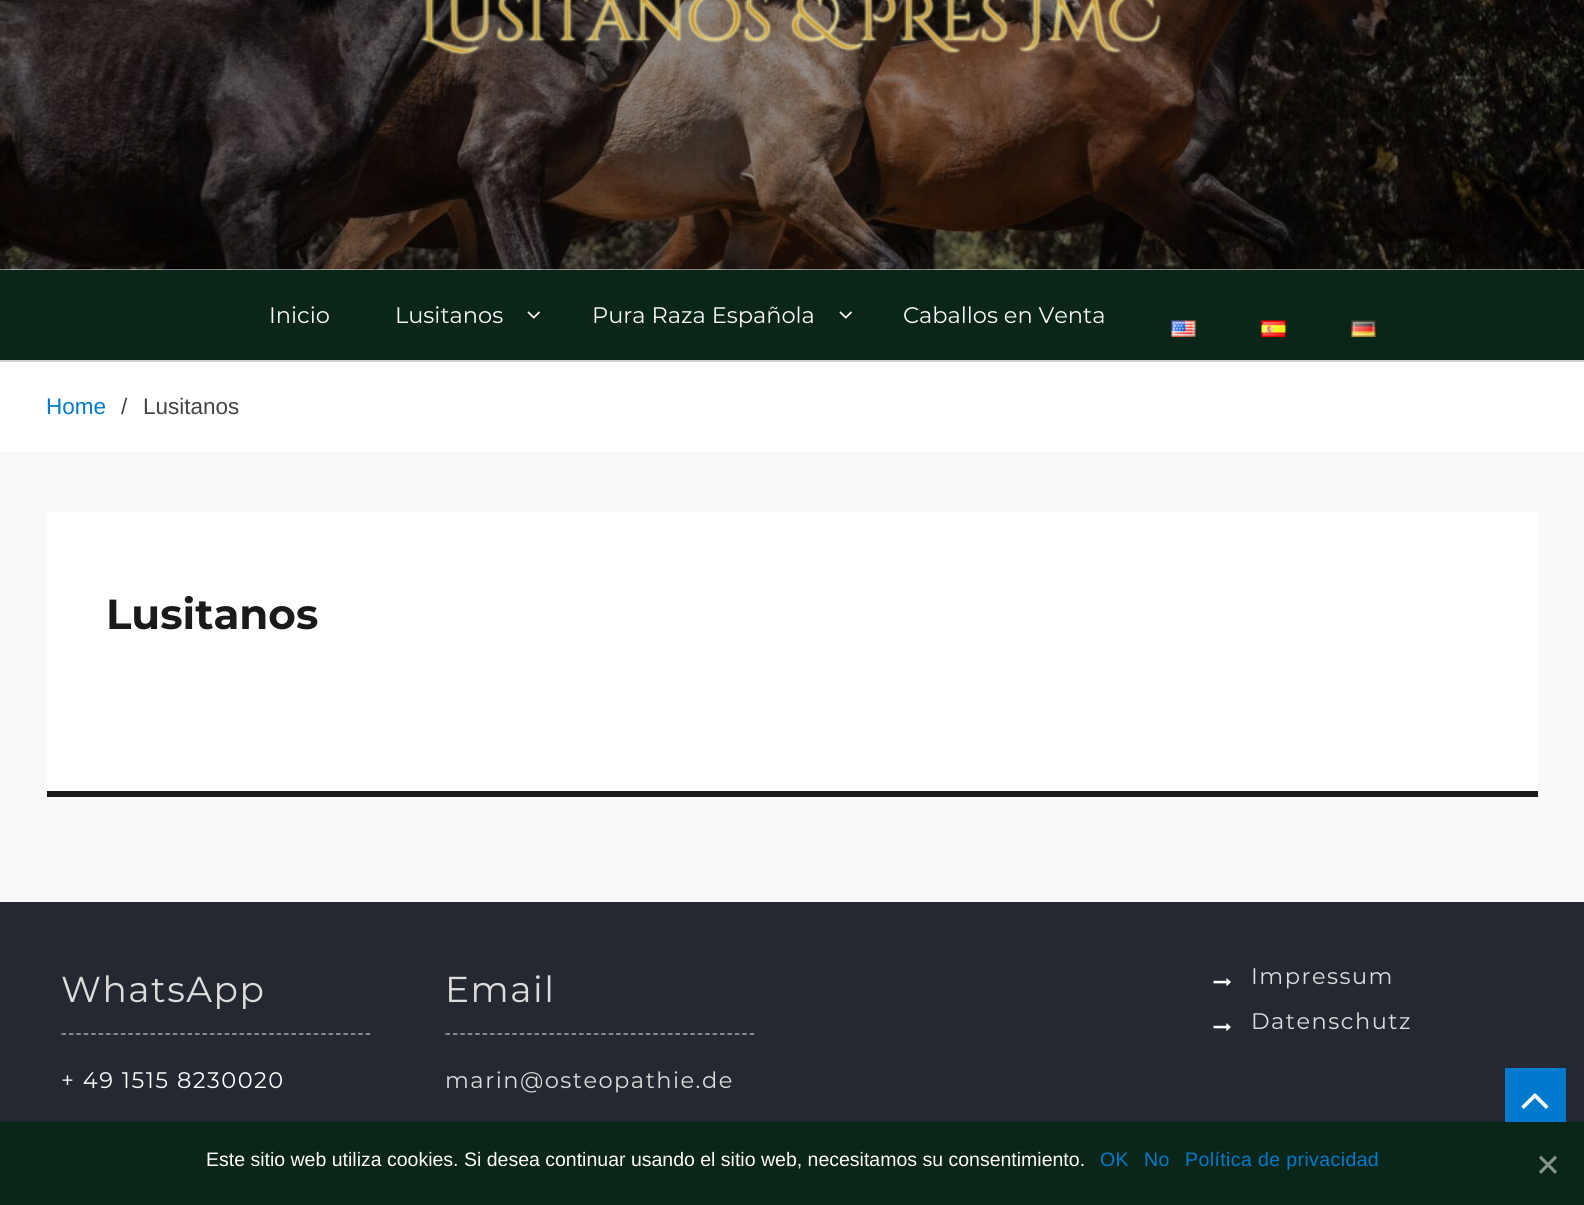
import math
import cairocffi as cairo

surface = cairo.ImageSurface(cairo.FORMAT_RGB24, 1584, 1205)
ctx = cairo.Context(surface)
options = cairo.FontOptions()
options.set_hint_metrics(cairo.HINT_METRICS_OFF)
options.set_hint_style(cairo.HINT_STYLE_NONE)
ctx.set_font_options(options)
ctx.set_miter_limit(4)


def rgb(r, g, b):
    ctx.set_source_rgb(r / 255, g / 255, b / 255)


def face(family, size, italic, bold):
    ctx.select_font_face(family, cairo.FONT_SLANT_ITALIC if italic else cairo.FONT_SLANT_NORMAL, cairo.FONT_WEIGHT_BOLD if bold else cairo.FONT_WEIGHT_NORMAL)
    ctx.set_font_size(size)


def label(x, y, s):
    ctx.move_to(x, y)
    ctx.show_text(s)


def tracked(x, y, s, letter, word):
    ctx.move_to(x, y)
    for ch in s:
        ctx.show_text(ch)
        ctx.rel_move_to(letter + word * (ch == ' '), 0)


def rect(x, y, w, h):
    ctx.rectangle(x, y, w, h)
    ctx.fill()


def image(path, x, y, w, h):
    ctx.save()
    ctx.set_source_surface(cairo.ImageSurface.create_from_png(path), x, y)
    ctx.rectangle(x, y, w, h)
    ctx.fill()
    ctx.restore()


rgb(249, 249, 249)
ctx.paint()
rgb(255, 255, 255)
rect(0, 269, 1584, 1)
image('image0.png', 0, 0, 1584, 270)
image('image1.png', 420, 0, 742, 56)
rgb(9, 38, 25)
rect(0, 270, 1584, 90)
rgb(209, 209, 209)
rect(0, 360, 1584, 2)
face('Montserrat', 22.5, 0, 0)
rgb(249, 249, 249)
label(269, 323, 'Inicio')
label(395, 323, 'Lusitanos')
image('image2.png', 527, 311, 13, 8)
label(592, 323, 'Pura Raza Española')
image('image2.png', 839, 311, 13, 8)
label(903, 323, 'Caballos en Venta')
image('image3.png', 1171, 320, 25, 17)
image('image4.png', 1261, 320, 25, 17)
image('image5.png', 1351, 320, 25, 17)
rgb(255, 255, 255)
rect(0, 362, 1584, 90)
face('Liberation Sans', 22.5, 0, 0)
rgb(0, 122, 204)
label(46, 414, 'Home')
rgb(68, 68, 68)
label(121, 414, '/')
label(143, 414, 'Lusitanos')
rgb(255, 255, 255)
rect(47, 512, 1491, 279)
rgb(26, 26, 26)
rect(47, 791, 1491, 6)
face('Montserrat', 42, 0, 1)
label(106, 629, 'Lusitanos')
rgb(37, 40, 49)
rect(0, 902, 1584, 220)
ctx.new_path()
ctx.move_to(61.5, 1034)
ctx.line_to(370.5, 1034)
rgb(169, 168, 168)
ctx.set_line_width(1.5)
ctx.set_dash([4.5, 2.92])
ctx.stroke()
face('Montserrat', 36, 0, 0)
rgb(221, 221, 221)
tracked(61, 1002, 'WhatsApp', 1.5, 0)
face('Montserrat', 22.5, 0, 0)
rgb(255, 255, 255)
tracked(61, 1088, '+ 49 1515 8230020', 1.5, 0)
ctx.new_path()
ctx.move_to(445.5, 1034)
ctx.line_to(754.5, 1034)
rgb(169, 168, 168)
ctx.stroke()
face('Montserrat', 36, 0, 0)
rgb(221, 221, 221)
tracked(445, 1002, 'Email', 1.5, 0)
face('Montserrat', 22.5, 0, 0)
tracked(445, 1088, 'marin@osteopathie.de', 1.5, 0)
image('image6.png', 1213, 978, 18, 8)
tracked(1251, 984, 'Impressum', 1.5, 0)
image('image6.png', 1213, 1023, 18, 8)
tracked(1251, 1029, 'Datenschutz', 1.5, 0)
rgb(0, 122, 204)
rect(1505, 1068, 61, 54)
image('image7.png', 1521, 1093, 28, 16)
rgb(10, 38, 24)
rect(0, 1122, 1584, 83)
face('Liberation Sans', 19.5, 0, 0)
rgb(255, 255, 255)
label(206, 1166, 'Este sitio web utiliza cookies. Si desea continuar usando el sitio web, necesitamos su consentimiento.')
rgb(0, 122, 204)
tracked(1100, 1166, 'OK', 0.4, 0)
tracked(1144, 1166, 'No', 0.4, 0)
tracked(1185, 1166, 'Política de privacidad', 0.4, 0)
rgb(133, 147, 140)
ctx.new_path()
ctx.move_to(1555, 1155.5)
ctx.line_to(1557, 1158)
ctx.line_to(1541, 1174)
ctx.line_to(1539, 1171.5)
ctx.close_path()
ctx.fill()
ctx.new_path()
ctx.move_to(1539, 1158)
ctx.line_to(1541, 1155.5)
ctx.line_to(1557, 1171.5)
ctx.line_to(1555, 1174)
ctx.close_path()
ctx.fill()
surface.write_to_png('render.png')
